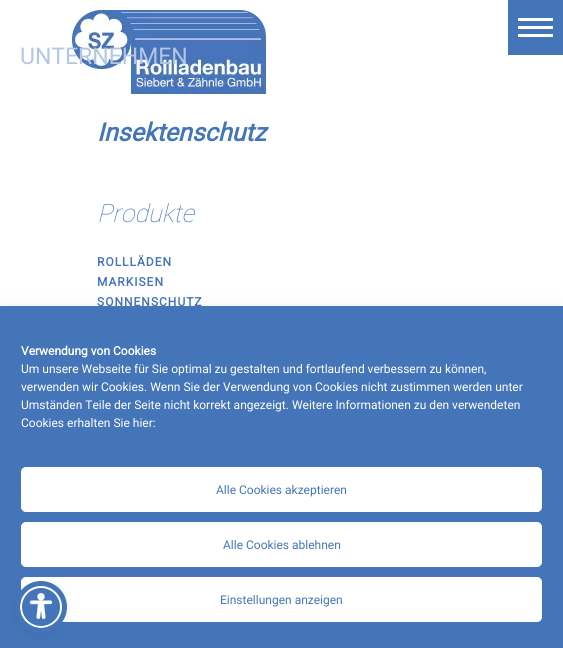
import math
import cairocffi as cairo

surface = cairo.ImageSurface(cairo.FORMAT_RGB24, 563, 648)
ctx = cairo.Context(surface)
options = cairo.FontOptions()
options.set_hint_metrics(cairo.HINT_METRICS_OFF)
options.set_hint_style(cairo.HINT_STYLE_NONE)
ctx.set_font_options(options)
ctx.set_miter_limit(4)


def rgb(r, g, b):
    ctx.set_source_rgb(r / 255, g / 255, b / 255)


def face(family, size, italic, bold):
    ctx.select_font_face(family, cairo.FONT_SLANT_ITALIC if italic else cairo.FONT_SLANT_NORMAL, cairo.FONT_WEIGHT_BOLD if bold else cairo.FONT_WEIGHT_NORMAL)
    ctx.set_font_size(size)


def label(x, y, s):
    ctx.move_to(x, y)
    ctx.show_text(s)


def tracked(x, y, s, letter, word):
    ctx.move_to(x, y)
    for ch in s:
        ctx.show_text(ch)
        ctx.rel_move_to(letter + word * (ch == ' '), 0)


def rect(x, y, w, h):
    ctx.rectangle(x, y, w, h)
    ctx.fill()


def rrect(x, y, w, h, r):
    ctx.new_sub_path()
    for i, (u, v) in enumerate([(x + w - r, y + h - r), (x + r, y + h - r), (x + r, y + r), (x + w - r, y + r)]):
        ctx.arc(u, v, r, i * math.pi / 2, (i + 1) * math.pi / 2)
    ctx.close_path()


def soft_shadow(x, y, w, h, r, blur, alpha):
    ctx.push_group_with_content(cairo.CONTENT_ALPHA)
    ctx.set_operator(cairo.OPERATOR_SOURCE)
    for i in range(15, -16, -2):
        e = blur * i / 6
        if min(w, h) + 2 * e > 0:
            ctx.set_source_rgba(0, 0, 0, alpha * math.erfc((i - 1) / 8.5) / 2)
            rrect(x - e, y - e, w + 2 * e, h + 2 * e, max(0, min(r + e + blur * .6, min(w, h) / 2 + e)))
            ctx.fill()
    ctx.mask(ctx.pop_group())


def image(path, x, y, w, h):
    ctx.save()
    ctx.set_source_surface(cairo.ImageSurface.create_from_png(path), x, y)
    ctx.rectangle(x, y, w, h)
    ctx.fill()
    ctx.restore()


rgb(255, 255, 255)
ctx.paint()
image('image0.png', 72, 10, 194, 84)
face('Roboto', 23, 0, 0)
rgb(179, 198, 226)
label(20, 64, 'UNTERNEHMEN')
rgb(68, 117, 185)
rect(508, 0, 55, 55)
rgb(255, 255, 255)
rect(518, 18, 35, 3)
rect(518, 26, 35, 3)
rect(518, 34, 35, 3)
face('Roboto', 25, 1, 1)
rgb(68, 117, 185)
label(97, 141, 'Insektenschutz')
face('Roboto Thin', 25, 1, 0)
label(97, 222, 'Produkte')
face('Roboto', 12, 0, 1)
tracked(97, 266, 'ROLLLÄDEN', 1, 0)
tracked(97, 286, 'MARKISEN', 1, 0)
tracked(97, 306, 'SONNENSCHUTZ', 1, 0)
rgb(0, 0, 0)
soft_shadow(0, 316, 563, 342, 0, 10, 0.19)
rgb(68, 117, 185)
rect(0, 306, 563, 342)
rgb(255, 255, 255)
label(21, 355, 'Verwendung von Cookies')
face('Roboto', 12, 0, 0)
label(21, 373, 'Um unsere Webseite für Sie optimal zu gestalten und fortlaufend verbessern zu können,')
label(21, 391, 'verwenden wir Cookies. Wenn Sie der Verwendung von Cookies nicht zustimmen werden unter')
label(21, 409, 'Umständen Teile der Seite nicht korrekt angezeigt. Weitere Informationen zu den verwendeten')
label(21, 427, 'Cookies erhalten Sie hier:')
rrect(21.5, 467.5, 520, 44, 4.5)
ctx.fill_preserve()
ctx.set_line_width(1)
ctx.stroke()
rgb(68, 117, 185)
label(216, 494, 'Alle Cookies akzeptieren')
rgb(255, 255, 255)
rrect(21.5, 522.5, 520, 44, 4.5)
ctx.fill_preserve()
ctx.stroke()
rgb(68, 117, 185)
label(223, 549, 'Alle Cookies ablehnen')
rgb(255, 255, 255)
rrect(21.5, 577.5, 520, 44, 4.5)
ctx.fill_preserve()
ctx.stroke()
rgb(68, 117, 185)
label(220, 604, 'Einstellungen anzeigen')
rgb(93, 100, 148)
soft_shadow(20, 588, 42, 42, 21, 2, 0.2)
rgb(37, 44, 97)
soft_shadow(20, 591, 42, 42, 21, 7.5, 0.15)
rgb(68, 117, 185)
ctx.arc(41, 607, 20, 0, 2 * math.pi)
ctx.fill_preserve()
rgb(255, 255, 255)
ctx.set_line_width(2)
ctx.stroke()
ctx.arc(41, 607, 23.5, 0, 2 * math.pi)
rgb(68, 117, 185)
ctx.set_line_width(5)
ctx.stroke()
image('image1.png', 29, 593, 24, 26)
surface.write_to_png('render.png')
